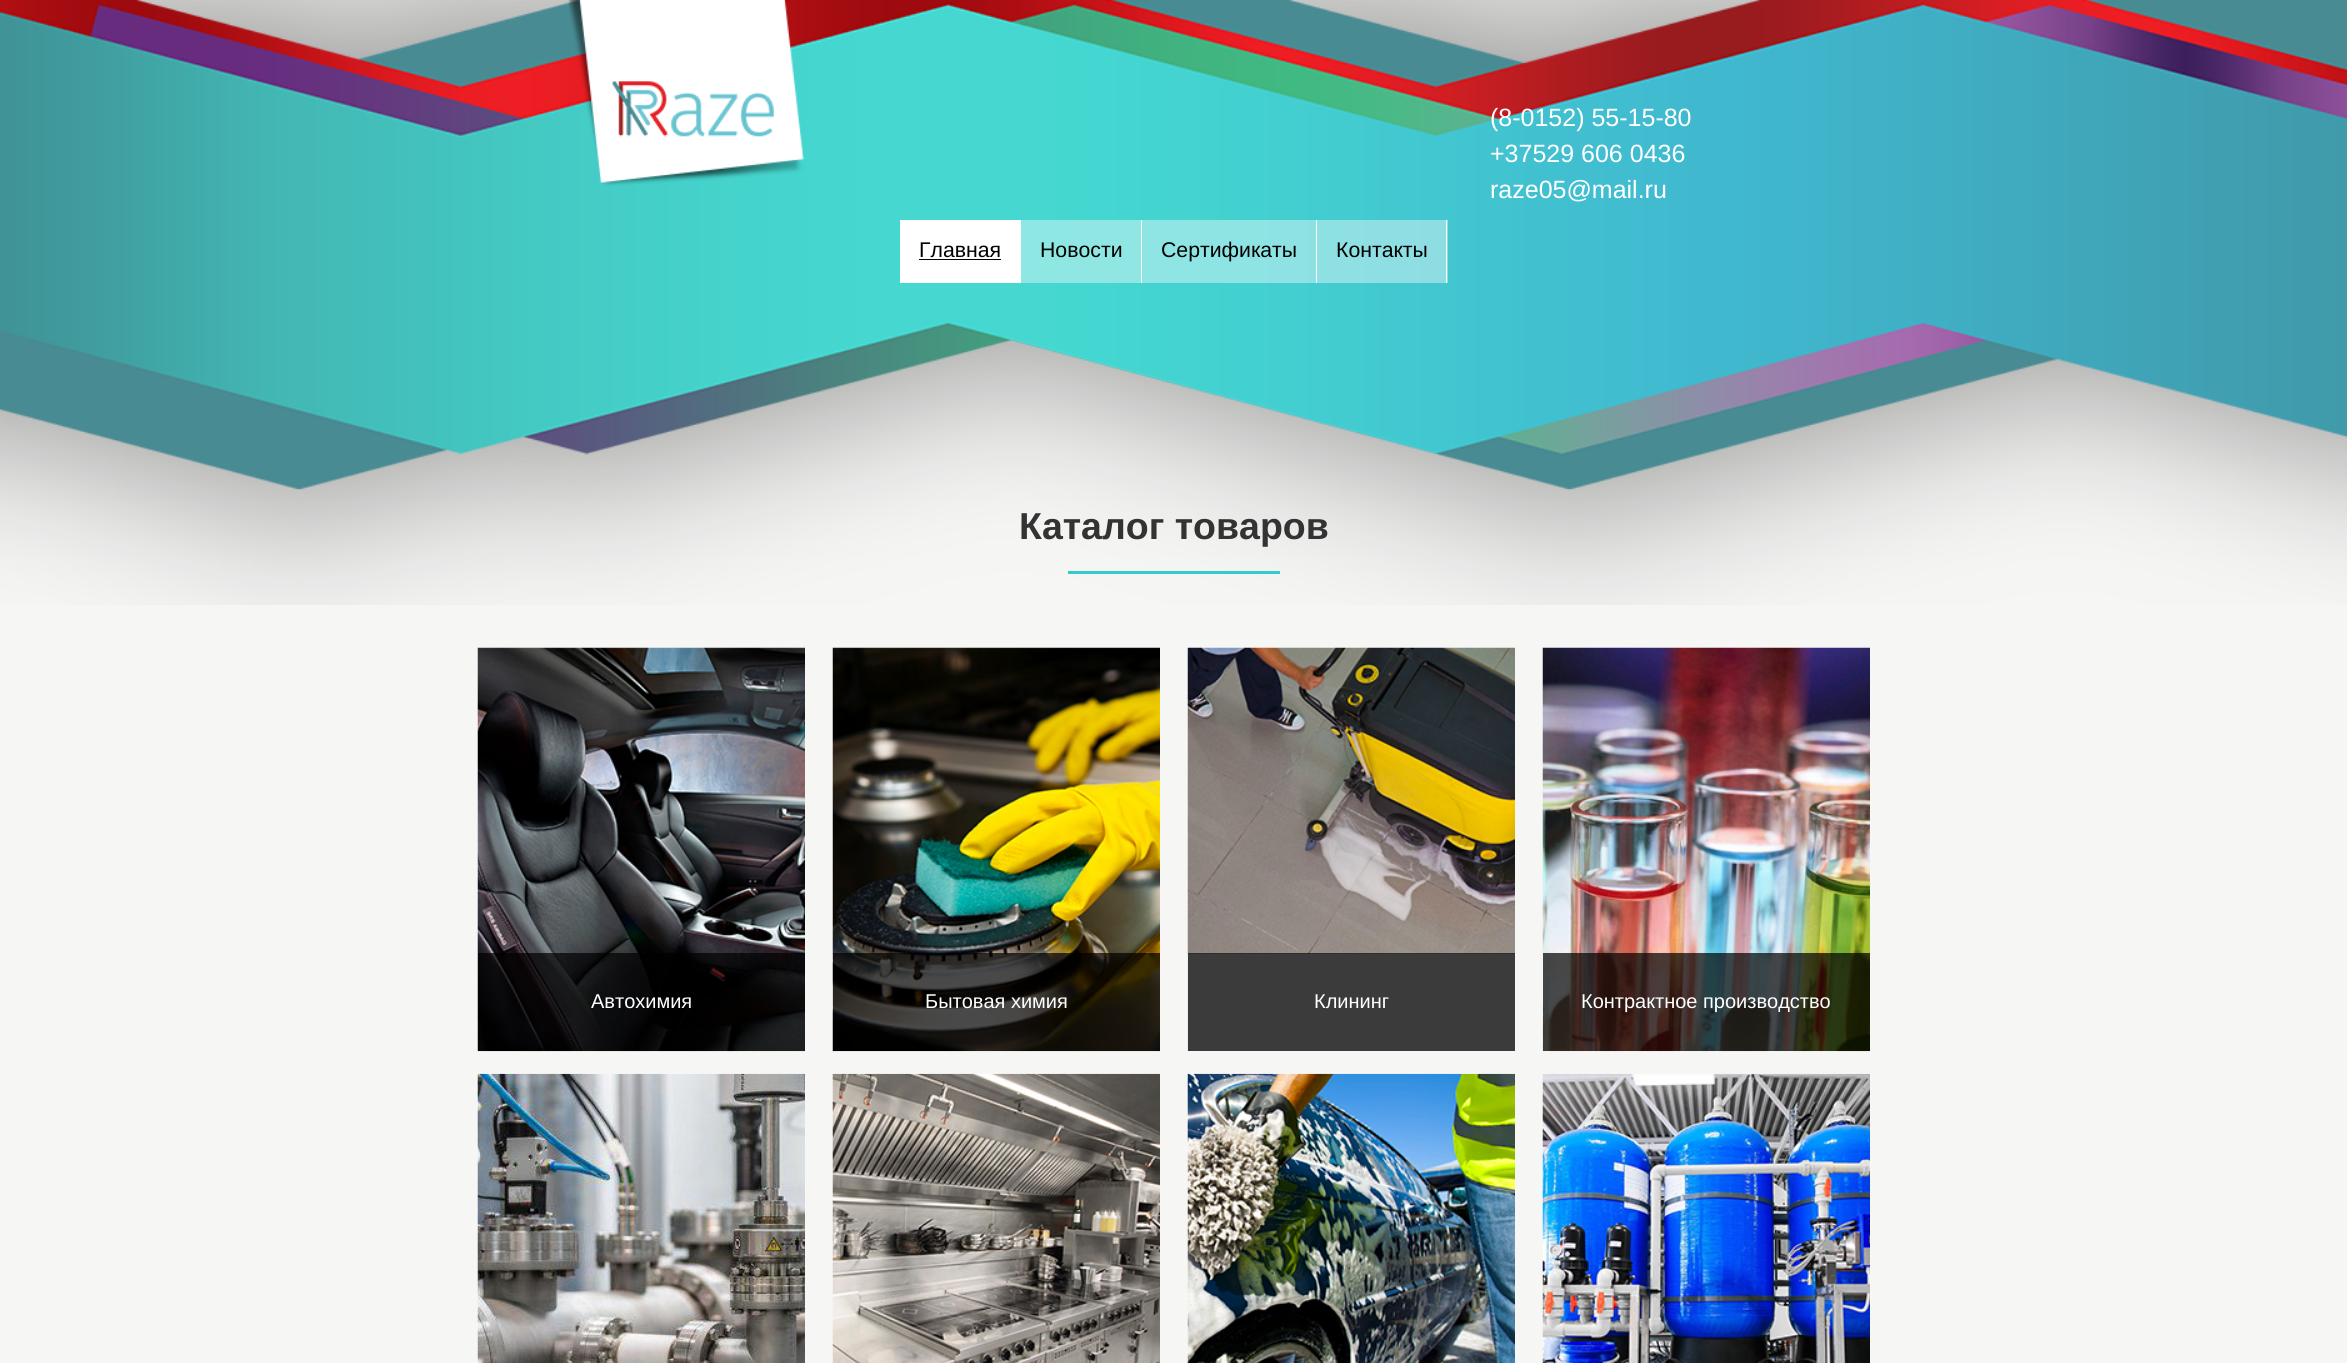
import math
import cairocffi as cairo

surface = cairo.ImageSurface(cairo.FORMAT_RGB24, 2347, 1363)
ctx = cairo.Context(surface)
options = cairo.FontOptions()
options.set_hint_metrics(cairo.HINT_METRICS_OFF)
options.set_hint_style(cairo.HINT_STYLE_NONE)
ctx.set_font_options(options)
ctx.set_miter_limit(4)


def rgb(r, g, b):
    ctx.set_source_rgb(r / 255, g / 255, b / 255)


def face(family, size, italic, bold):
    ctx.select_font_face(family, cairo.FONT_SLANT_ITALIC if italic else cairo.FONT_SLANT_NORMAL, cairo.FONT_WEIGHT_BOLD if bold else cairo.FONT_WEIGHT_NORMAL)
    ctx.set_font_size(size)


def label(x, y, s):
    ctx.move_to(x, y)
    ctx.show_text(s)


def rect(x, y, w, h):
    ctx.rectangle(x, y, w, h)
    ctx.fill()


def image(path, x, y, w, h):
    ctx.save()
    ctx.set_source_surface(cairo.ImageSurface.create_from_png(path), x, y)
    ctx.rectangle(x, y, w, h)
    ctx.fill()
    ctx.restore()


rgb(246, 246, 245)
ctx.paint()
image('image0.png', 0, 0, 2347, 605)
image('image1.png', 568, 0, 236, 186)
face('Liberation Sans', 25, 0, 0)
rgb(255, 255, 255)
label(1490, 126, '(8-0152) 55-15-80')
label(1490, 162, '+37529 606 0436')
label(1490, 198, 'raze05@mail.ru')
rect(900, 220, 121, 63)
face('Liberation Sans', 21.25, 0, 0)
rgb(0, 0, 0)
label(919, 257, 'Главная')
rect(919, 259, 82, 1)
ctx.set_source_rgba(1, 1, 1, 0.4)
rect(1021, 220, 122, 63)
rgb(255, 255, 255)
rect(1141, 220, 1, 63)
rgb(0, 0, 0)
label(1040, 257, 'Новости')
ctx.set_source_rgba(1, 1, 1, 0.4)
rect(1143, 220, 175, 63)
rgb(255, 255, 255)
rect(1316, 220, 1, 63)
rgb(0, 0, 0)
label(1161, 257, 'Сертификаты')
ctx.set_source_rgba(1, 1, 1, 0.4)
rect(1318, 220, 130, 63)
rgb(255, 255, 255)
rect(1446, 220, 1, 63)
rgb(0, 0, 0)
label(1336, 257, 'Контакты')
face('Liberation Sans', 37.5, 0, 1)
rgb(51, 51, 51)
label(1019, 539, 'Каталог товаров')
rgb(51, 204, 204)
rect(1068, 571, 212, 3)
image('image2.png', 477, 647, 328, 405)
ctx.set_source_rgba(0, 0, 0, 0.71)
rect(478, 953, 327, 98)
face('Liberation Sans', 20, 0, 0)
rgb(255, 255, 255)
label(591, 1008, 'Автохимия')
image('image3.png', 832, 647, 328, 405)
ctx.set_source_rgba(0, 0, 0, 0.71)
rect(833, 953, 327, 98)
rgb(255, 255, 255)
label(925, 1008, 'Бытовая химия')
image('image4.png', 1187, 647, 328, 404)
ctx.set_source_rgba(0, 0, 0, 0.71)
rect(1188, 953, 327, 98)
rgb(255, 255, 255)
label(1314, 1008, 'Клининг')
image('image5.png', 1542, 647, 328, 405)
ctx.set_source_rgba(0, 0, 0, 0.71)
rect(1543, 953, 327, 98)
rgb(255, 255, 255)
label(1581, 1008, 'Контрактное производство')
image('image6.png', 477, 1073, 328, 290)
image('image7.png', 832, 1073, 328, 290)
image('image8.png', 1187, 1073, 328, 290)
image('image9.png', 1542, 1073, 328, 290)
surface.write_to_png('render.png')
